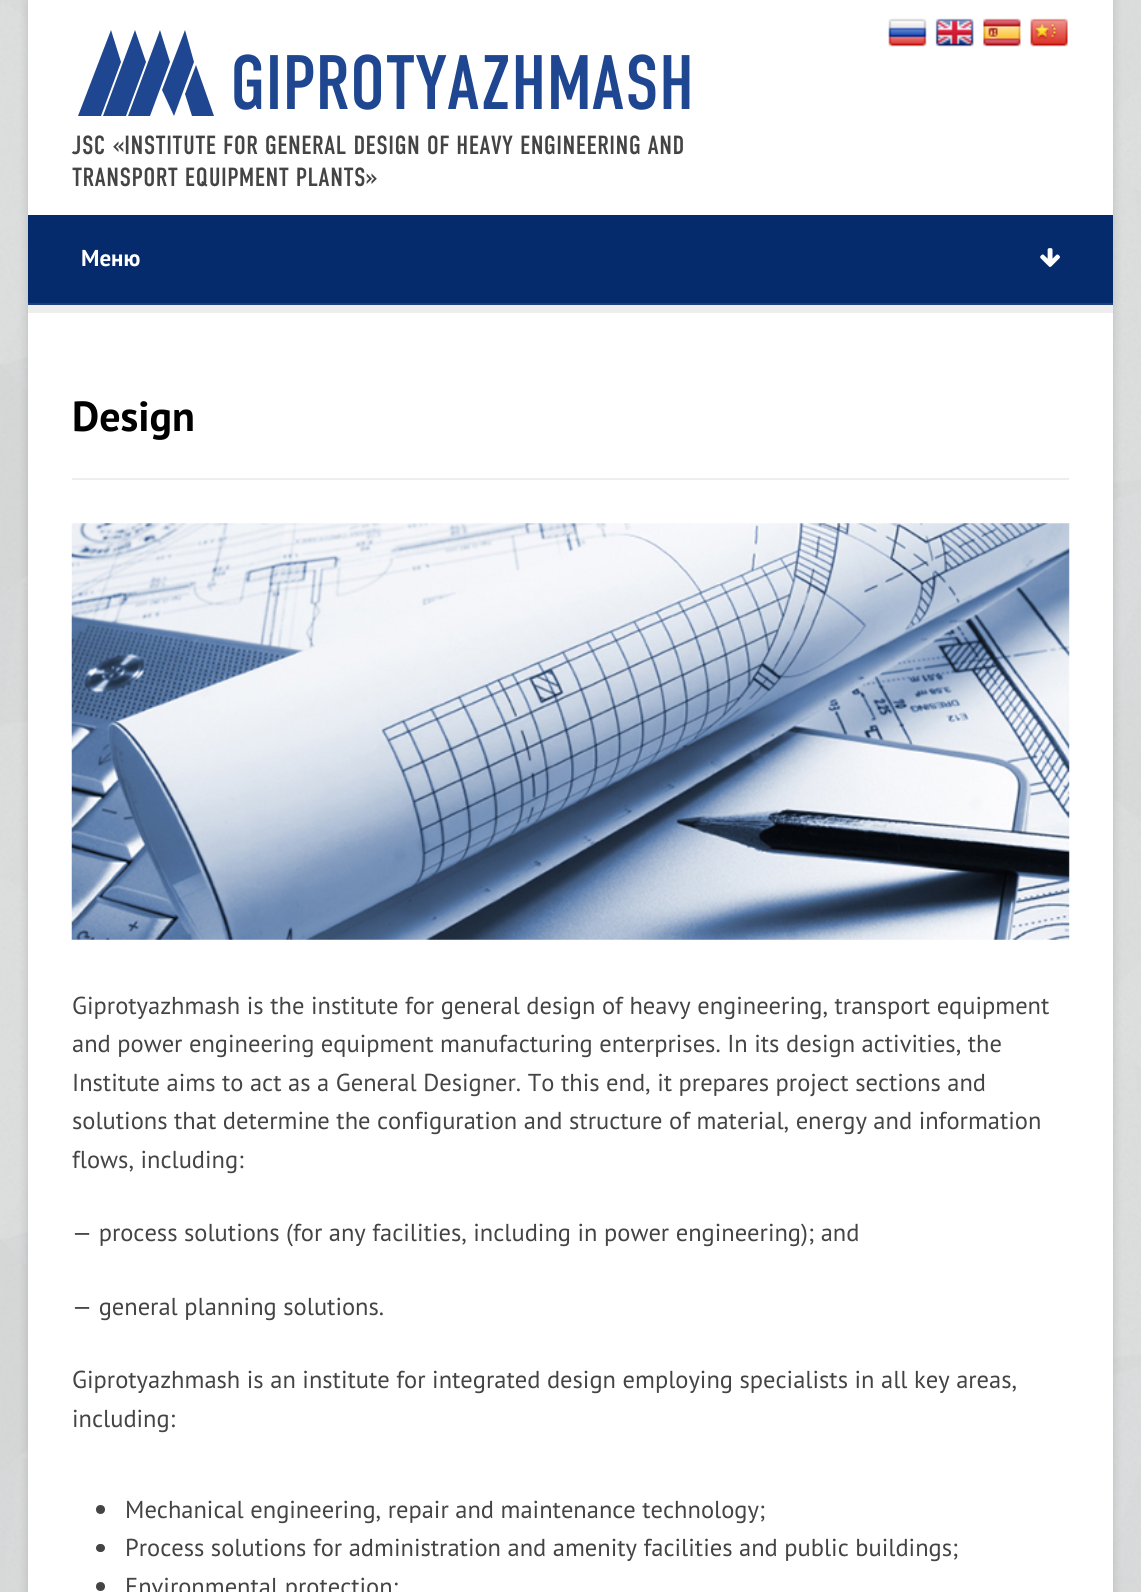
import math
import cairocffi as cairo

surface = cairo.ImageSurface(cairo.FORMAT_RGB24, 1141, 1592)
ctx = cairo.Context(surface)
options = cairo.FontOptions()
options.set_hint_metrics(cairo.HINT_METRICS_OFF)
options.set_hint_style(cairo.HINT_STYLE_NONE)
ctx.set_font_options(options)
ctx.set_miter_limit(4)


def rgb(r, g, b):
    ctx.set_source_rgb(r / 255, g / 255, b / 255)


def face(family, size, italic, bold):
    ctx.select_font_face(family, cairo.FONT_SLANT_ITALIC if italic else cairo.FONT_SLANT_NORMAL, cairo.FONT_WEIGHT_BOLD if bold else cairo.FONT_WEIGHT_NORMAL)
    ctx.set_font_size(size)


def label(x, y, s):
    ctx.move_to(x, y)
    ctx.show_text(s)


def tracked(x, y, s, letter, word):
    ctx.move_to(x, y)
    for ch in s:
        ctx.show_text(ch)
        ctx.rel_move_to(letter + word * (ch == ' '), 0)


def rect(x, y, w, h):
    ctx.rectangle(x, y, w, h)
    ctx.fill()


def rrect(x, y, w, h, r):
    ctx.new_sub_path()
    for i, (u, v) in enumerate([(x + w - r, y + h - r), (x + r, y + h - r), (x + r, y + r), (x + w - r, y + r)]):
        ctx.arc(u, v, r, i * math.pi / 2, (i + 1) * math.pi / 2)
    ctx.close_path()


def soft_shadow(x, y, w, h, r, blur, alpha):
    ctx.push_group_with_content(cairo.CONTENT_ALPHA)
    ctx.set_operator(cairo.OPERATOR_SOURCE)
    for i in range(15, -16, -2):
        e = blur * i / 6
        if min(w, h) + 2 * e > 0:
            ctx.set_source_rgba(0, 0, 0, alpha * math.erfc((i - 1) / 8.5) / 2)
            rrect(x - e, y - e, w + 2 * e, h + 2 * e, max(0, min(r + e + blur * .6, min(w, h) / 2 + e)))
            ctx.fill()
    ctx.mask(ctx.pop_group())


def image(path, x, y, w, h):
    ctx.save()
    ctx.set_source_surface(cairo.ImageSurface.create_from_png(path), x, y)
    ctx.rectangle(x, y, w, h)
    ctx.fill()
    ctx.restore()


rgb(255, 255, 255)
ctx.paint()
image('image0.png', 0, 0, 1141, 1592)
rgb(0, 0, 0)
soft_shadow(28, 0, 1085, 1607, 0, 5, 0.15)
rgb(255, 255, 255)
rect(28, 0, 1085, 1592)
image('image1.png', 888, 18, 39, 29)
image('image2.png', 935, 18, 39, 29)
image('image3.png', 983, 18, 38, 29)
image('image4.png', 1030, 18, 38, 29)
rgb(31, 70, 144)
ctx.set_fill_rule(cairo.FILL_RULE_EVEN_ODD)
ctx.new_path()
ctx.move_to(111, 30)
ctx.line_to(121, 62)
ctx.line_to(101, 116)
ctx.line_to(78, 116)
ctx.close_path()
ctx.fill()
ctx.new_path()
ctx.move_to(135, 30)
ctx.line_to(146, 62)
ctx.line_to(126, 116)
ctx.line_to(103, 116)
ctx.close_path()
ctx.fill()
ctx.new_path()
ctx.move_to(162, 90)
ctx.line_to(185, 30)
ctx.line_to(194, 62)
ctx.line_to(174, 116)
ctx.close_path()
ctx.fill()
ctx.new_path()
ctx.move_to(160, 30)
ctx.line_to(170, 62)
ctx.line_to(150, 116)
ctx.line_to(128, 116)
ctx.close_path()
ctx.fill()
ctx.new_path()
ctx.move_to(196, 65)
ctx.line_to(214, 116)
ctx.line_to(192, 116)
ctx.line_to(185, 94)
ctx.close_path()
ctx.fill()
face('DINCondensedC', 77, 0, 0)
label(230, 109, 'GIPROTYAZHMASH')
face('DINCondensedC', 26.25, 0, 0)
rgb(68, 68, 68)
tracked(72, 154, 'JSC «INSTITUTE FOR GENERAL DESIGN OF HEAVY ENGINEERING AND', 0.4, 0)
tracked(72, 186, 'TRANSPORT EQUIPMENT PLANTS»', 0.4, 0)
rgb(5, 43, 109)
rect(28, 215, 1085, 88)
rgb(238, 238, 238)
rect(28, 305, 1085, 8)
rgb(30, 64, 124)
rect(28, 303, 1085, 2)
face('PT Sans', 23, 0, 1)
rgb(255, 255, 255)
label(81, 266, 'Меню')
image('image5.png', 1040, 248, 20, 19)
rgb(238, 238, 238)
rect(72, 478, 997, 2)
face('PT Sans', 42, 0, 1)
rgb(0, 0, 0)
label(72, 431, 'Design')
image('image6.png', 71, 523, 999, 417)
face('PT Sans', 24.5, 0, 0)
rgb(68, 68, 68)
label(72, 1014, 'Giprotyazhmash is the institute for general design of heavy engineering, transport equipment')
label(72, 1052, 'and power engineering equipment manufacturing enterprises. In its design activities, the')
label(72, 1091, 'Institute aims to act as a General Designer. To this end, it prepares project sections and')
label(72, 1129, 'solutions that determine the configuration and structure of material, energy and information')
label(72, 1168, 'flows, including:')
label(72, 1241, '— process solutions (for any facilities, including in power engineering); and')
label(72, 1315, '— general planning solutions.')
label(72, 1388, 'Giprotyazhmash is an institute for integrated design employing specialists in all key areas,')
label(72, 1427, 'including:')
ctx.new_path()
ctx.arc(100.5, 1509.5, 4.5, 0, 2 * math.pi)
ctx.fill()
label(125, 1518, 'Mechanical engineering, repair and maintenance technology;')
rrect(96, 1544, 9, 8, 4)
ctx.fill()
label(125, 1556, 'Process solutions for administration and amenity facilities and public buildings;')
ctx.new_path()
ctx.arc(100.5, 1586.5, 4.5, 0, 2 * math.pi)
ctx.fill()
label(125, 1595, 'Environmental protection;')
surface.write_to_png('render.png')
